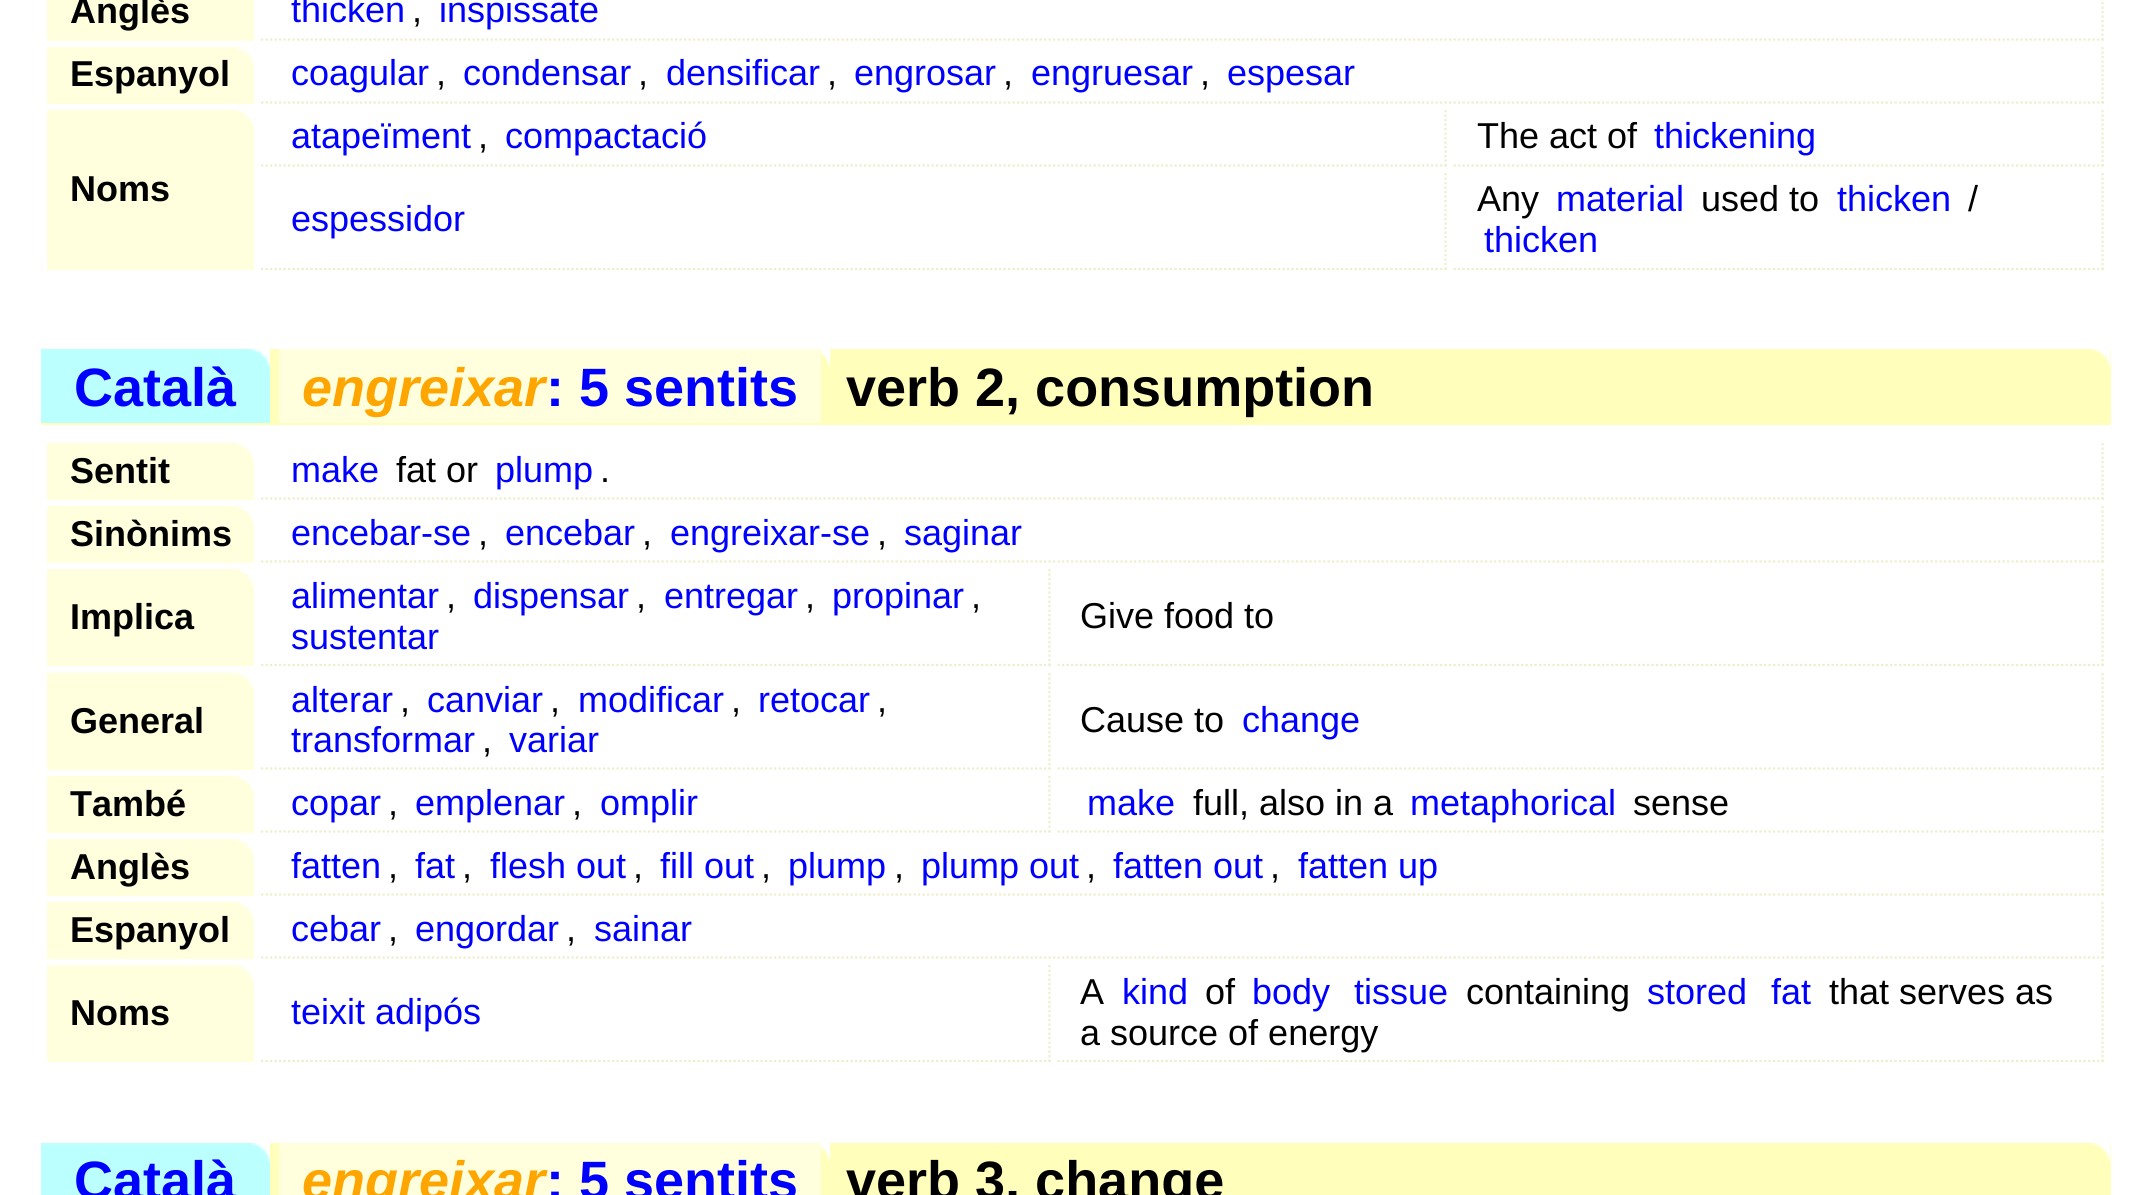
import math
import cairocffi as cairo

surface = cairo.ImageSurface(cairo.FORMAT_RGB24, 2150, 1195)
ctx = cairo.Context(surface)
options = cairo.FontOptions()
options.set_hint_metrics(cairo.HINT_METRICS_OFF)
options.set_hint_style(cairo.HINT_STYLE_NONE)
ctx.set_font_options(options)
ctx.set_miter_limit(4)


def rgb(r, g, b):
    ctx.set_source_rgb(r / 255, g / 255, b / 255)


def face(family, size, italic, bold):
    ctx.select_font_face(family, cairo.FONT_SLANT_ITALIC if italic else cairo.FONT_SLANT_NORMAL, cairo.FONT_WEIGHT_BOLD if bold else cairo.FONT_WEIGHT_NORMAL)
    ctx.set_font_size(size)


def label(x, y, s):
    ctx.move_to(x, y)
    ctx.show_text(s)


def rect(x, y, w, h):
    ctx.rectangle(x, y, w, h)
    ctx.fill()


def image(path, x, y, w, h):
    ctx.save()
    ctx.set_source_surface(cairo.ImageSurface.create_from_png(path), x, y)
    ctx.rectangle(x, y, w, h)
    ctx.fill()
    ctx.restore()


rgb(255, 255, 255)
ctx.paint()
rgb(255, 255, 221)
rect(47, 0, 207, 41)
image('image0.png', 252, 0, 2, 4)
face('Liberation Sans', 36, 0, 1)
rgb(0, 0, 0)
label(70, 23, 'Anglès')
ctx.new_path()
ctx.move_to(2102.5, -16)
ctx.line_to(2102.5, 40.5)
rgb(238, 238, 204)
ctx.set_line_width(2.2)
ctx.set_dash([2.25, 2.25])
ctx.stroke()
ctx.new_path()
ctx.move_to(261, 39.5)
ctx.line_to(2104, 39.5)
ctx.stroke()
face('Liberation Sans', 36, 0, 0)
rgb(0, 0, 255)
label(291, 22, 'thicken')
rgb(0, 0, 0)
label(412, 22, ',')
rgb(0, 0, 255)
label(439, 22, 'inspissate')
rgb(255, 255, 221)
rect(47, 47, 207, 57)
image('image1.png', 235, 47, 19, 20)
face('Liberation Sans', 36, 0, 1)
rgb(0, 0, 0)
label(70, 86, 'Espanyol')
ctx.new_path()
ctx.move_to(2102.5, 47)
ctx.line_to(2102.5, 103.5)
rgb(238, 238, 204)
ctx.stroke()
ctx.new_path()
ctx.move_to(261, 102.5)
ctx.line_to(2104, 102.5)
ctx.stroke()
face('Liberation Sans', 36, 0, 0)
rgb(0, 0, 255)
label(291, 85, 'coagular')
rgb(0, 0, 0)
label(436, 85, ',')
rgb(0, 0, 255)
label(463, 85, 'condensar')
rgb(0, 0, 0)
label(638, 85, ',')
rgb(0, 0, 255)
label(666, 85, 'densificar')
rgb(0, 0, 0)
label(827, 85, ',')
rgb(0, 0, 255)
label(854, 85, 'engrosar')
rgb(0, 0, 0)
label(1003, 85, ',')
rgb(0, 0, 255)
label(1031, 85, 'engruesar')
rgb(0, 0, 0)
label(1200, 85, ',')
rgb(0, 0, 255)
label(1227, 85, 'espesar')
ctx.new_path()
ctx.move_to(1445.5, 110)
ctx.line_to(1445.5, 166.5)
rgb(238, 238, 204)
ctx.stroke()
ctx.new_path()
ctx.move_to(261, 165.5)
ctx.line_to(1447, 165.5)
ctx.stroke()
rgb(0, 0, 255)
label(291, 148, 'atapeïment')
rgb(0, 0, 0)
label(478, 148, ',')
rgb(0, 0, 255)
label(505, 148, 'compactació')
ctx.new_path()
ctx.move_to(2102.5, 110)
ctx.line_to(2102.5, 166.5)
rgb(238, 238, 204)
ctx.stroke()
ctx.new_path()
ctx.move_to(1453.5, 165.5)
ctx.line_to(2104, 165.5)
ctx.stroke()
rgb(0, 0, 0)
label(1477, 148, 'The act of')
rgb(0, 0, 255)
label(1654, 148, 'thickening')
rgb(255, 255, 221)
rect(47, 110, 207, 160)
image('image1.png', 235, 110, 19, 20)
face('Liberation Sans', 36, 0, 1)
rgb(0, 0, 0)
label(70, 201, 'Noms')
ctx.new_path()
ctx.move_to(1445.5, 173)
ctx.line_to(1445.5, 270)
rgb(238, 238, 204)
ctx.stroke()
ctx.new_path()
ctx.move_to(261, 269)
ctx.line_to(1447, 269)
ctx.stroke()
face('Liberation Sans', 36, 0, 0)
rgb(0, 0, 255)
label(291, 231, 'espessidor')
ctx.new_path()
ctx.move_to(2102.5, 173)
ctx.line_to(2102.5, 270)
rgb(238, 238, 204)
ctx.stroke()
ctx.new_path()
ctx.move_to(1453.5, 269)
ctx.line_to(2104, 269)
ctx.stroke()
rgb(0, 0, 0)
label(1477, 211, 'Any')
rgb(0, 0, 255)
label(1556, 211, 'material')
rgb(0, 0, 0)
label(1701, 211, 'used to')
rgb(0, 0, 255)
label(1837, 211, 'thicken')
rgb(0, 0, 0)
label(1968, 211, '/')
rgb(0, 0, 255)
label(1484, 252, 'thicken')
rgb(255, 255, 187)
rect(41, 349, 2070, 76)
image('image2.png', 2090, 349, 21, 20)
rgb(187, 255, 255)
rect(41, 349, 229, 74)
image('image3.png', 250, 349, 20, 20)
image('image4.png', 821, 349, 10, 20)
face('Liberation Sans', 54, 0, 1)
rgb(0, 0, 255)
label(74, 406, 'Català')
rgb(255, 255, 221)
rect(279, 349, 542, 74)
face('Liberation Sans', 54, 1, 1)
rgb(255, 165, 0)
label(302, 406, 'engreixar')
face('Liberation Sans', 54, 0, 1)
rgb(0, 0, 255)
label(546, 406, ': 5 sentits')
rgb(0, 0, 0)
label(846, 406, 'verb 2, consumption')
rgb(255, 255, 221)
rect(47, 443, 207, 57)
image('image1.png', 235, 443, 19, 20)
face('Liberation Sans', 36, 0, 1)
rgb(0, 0, 0)
label(70, 483, 'Sentit')
ctx.new_path()
ctx.move_to(2102.5, 443)
ctx.line_to(2102.5, 499.5)
rgb(238, 238, 204)
ctx.stroke()
ctx.new_path()
ctx.move_to(261, 498.5)
ctx.line_to(2104, 498.5)
ctx.stroke()
face('Liberation Sans', 36, 0, 0)
rgb(0, 0, 255)
label(291, 482, 'make')
rgb(0, 0, 0)
label(396, 482, 'fat or')
rgb(0, 0, 255)
label(495, 482, 'plump')
rgb(0, 0, 0)
label(600, 482, '.')
rgb(255, 255, 221)
rect(47, 506, 207, 57)
image('image1.png', 235, 506, 19, 20)
face('Liberation Sans', 36, 0, 1)
rgb(0, 0, 0)
label(70, 546, 'Sinònims')
ctx.new_path()
ctx.move_to(2102.5, 506)
ctx.line_to(2102.5, 562.5)
rgb(238, 238, 204)
ctx.stroke()
ctx.new_path()
ctx.move_to(261, 561.5)
ctx.line_to(2104, 561.5)
ctx.stroke()
face('Liberation Sans', 36, 0, 0)
rgb(0, 0, 255)
label(291, 545, 'encebar-se')
rgb(0, 0, 0)
label(478, 545, ',')
rgb(0, 0, 255)
label(505, 545, 'encebar')
rgb(0, 0, 0)
label(642, 545, ',')
rgb(0, 0, 255)
label(670, 545, 'engreixar-se')
rgb(0, 0, 0)
label(877, 545, ',')
rgb(0, 0, 255)
label(904, 545, 'saginar')
rgb(255, 255, 221)
rect(47, 569, 207, 97)
image('image1.png', 235, 569, 19, 20)
face('Liberation Sans', 36, 0, 1)
rgb(0, 0, 0)
label(70, 629, 'Implica')
ctx.new_path()
ctx.move_to(1049.5, 569)
ctx.line_to(1049.5, 666)
rgb(238, 238, 204)
ctx.stroke()
ctx.new_path()
ctx.move_to(261, 665)
ctx.line_to(1051, 665)
ctx.stroke()
face('Liberation Sans', 36, 0, 0)
rgb(0, 0, 255)
label(291, 608, 'alimentar')
rgb(0, 0, 0)
label(446, 608, ',')
rgb(0, 0, 255)
label(473, 608, 'dispensar')
rgb(0, 0, 0)
label(636, 608, ',')
rgb(0, 0, 255)
label(664, 608, 'entregar')
rgb(0, 0, 0)
label(805, 608, ',')
rgb(0, 0, 255)
label(832, 608, 'propinar')
rgb(0, 0, 0)
label(971, 608, ',')
rgb(0, 0, 255)
label(291, 649, 'sustentar')
ctx.new_path()
ctx.move_to(2102.5, 569)
ctx.line_to(2102.5, 666)
rgb(238, 238, 204)
ctx.stroke()
ctx.new_path()
ctx.move_to(1057.5, 665)
ctx.line_to(2104, 665)
ctx.stroke()
rgb(0, 0, 0)
label(1080, 628, 'Give food to')
rgb(255, 255, 221)
rect(47, 673, 207, 97)
image('image5.png', 235, 673, 19, 19)
face('Liberation Sans', 36, 0, 1)
rgb(0, 0, 0)
label(70, 733, 'General')
ctx.new_path()
ctx.move_to(1049.5, 673)
ctx.line_to(1049.5, 769.5)
rgb(238, 238, 204)
ctx.stroke()
ctx.new_path()
ctx.move_to(261, 768.5)
ctx.line_to(1051, 768.5)
ctx.stroke()
face('Liberation Sans', 36, 0, 0)
rgb(0, 0, 255)
label(291, 712, 'alterar')
rgb(0, 0, 0)
label(400, 712, ',')
rgb(0, 0, 255)
label(427, 712, 'canviar')
rgb(0, 0, 0)
label(550, 712, ',')
rgb(0, 0, 255)
label(578, 712, 'modificar')
rgb(0, 0, 0)
label(731, 712, ',')
rgb(0, 0, 255)
label(758, 712, 'retocar')
rgb(0, 0, 0)
label(877, 712, ',')
rgb(0, 0, 255)
label(291, 752, 'transformar')
rgb(0, 0, 0)
label(482, 752, ',')
rgb(0, 0, 255)
label(509, 752, 'variar')
ctx.new_path()
ctx.move_to(2102.5, 673)
ctx.line_to(2102.5, 769.5)
rgb(238, 238, 204)
ctx.stroke()
ctx.new_path()
ctx.move_to(1057.5, 768.5)
ctx.line_to(2104, 768.5)
ctx.stroke()
rgb(0, 0, 0)
label(1080, 732, 'Cause to')
rgb(0, 0, 255)
label(1242, 732, 'change')
rgb(255, 255, 221)
rect(47, 776, 207, 57)
image('image1.png', 235, 776, 19, 20)
face('Liberation Sans', 36, 0, 1)
rgb(0, 0, 0)
label(70, 816, 'També')
ctx.new_path()
ctx.move_to(1049.5, 776)
ctx.line_to(1049.5, 832.5)
rgb(238, 238, 204)
ctx.stroke()
ctx.new_path()
ctx.move_to(261, 831.5)
ctx.line_to(1051, 831.5)
ctx.stroke()
face('Liberation Sans', 36, 0, 0)
rgb(0, 0, 255)
label(291, 815, 'copar')
rgb(0, 0, 0)
label(388, 815, ',')
rgb(0, 0, 255)
label(415, 815, 'emplenar')
rgb(0, 0, 0)
label(572, 815, ',')
rgb(0, 0, 255)
label(600, 815, 'omplir')
ctx.new_path()
ctx.move_to(2102.5, 776)
ctx.line_to(2102.5, 832.5)
rgb(238, 238, 204)
ctx.stroke()
ctx.new_path()
ctx.move_to(1057.5, 831.5)
ctx.line_to(2104, 831.5)
ctx.stroke()
rgb(0, 0, 255)
label(1087, 815, 'make')
rgb(0, 0, 0)
label(1193, 815, 'full, also in a')
rgb(0, 0, 255)
label(1410, 815, 'metaphorical')
rgb(0, 0, 0)
label(1633, 815, 'sense')
rgb(255, 255, 221)
rect(47, 839, 207, 57)
image('image1.png', 235, 839, 19, 20)
face('Liberation Sans', 36, 0, 1)
rgb(0, 0, 0)
label(70, 879, 'Anglès')
ctx.new_path()
ctx.move_to(2102.5, 839)
ctx.line_to(2102.5, 895.5)
rgb(238, 238, 204)
ctx.stroke()
ctx.new_path()
ctx.move_to(261, 894.5)
ctx.line_to(2104, 894.5)
ctx.stroke()
face('Liberation Sans', 36, 0, 0)
rgb(0, 0, 255)
label(291, 878, 'fatten')
rgb(0, 0, 0)
label(388, 878, ',')
rgb(0, 0, 255)
label(415, 878, 'fat')
rgb(0, 0, 0)
label(462, 878, ',')
rgb(0, 0, 255)
label(490, 878, 'flesh out')
rgb(0, 0, 0)
label(633, 878, ',')
rgb(0, 0, 255)
label(660, 878, 'fill out')
rgb(0, 0, 0)
label(761, 878, ',')
rgb(0, 0, 255)
label(788, 878, 'plump')
rgb(0, 0, 0)
label(894, 878, ',')
rgb(0, 0, 255)
label(921, 878, 'plump out')
rgb(0, 0, 0)
label(1086, 878, ',')
rgb(0, 0, 255)
label(1113, 878, 'fatten out')
rgb(0, 0, 0)
label(1270, 878, ',')
rgb(0, 0, 255)
label(1298, 878, 'fatten up')
rgb(255, 255, 221)
rect(47, 902, 207, 57)
image('image1.png', 235, 902, 19, 20)
face('Liberation Sans', 36, 0, 1)
rgb(0, 0, 0)
label(70, 942, 'Espanyol')
ctx.new_path()
ctx.move_to(2102.5, 902)
ctx.line_to(2102.5, 958.5)
rgb(238, 238, 204)
ctx.stroke()
ctx.new_path()
ctx.move_to(261, 957.5)
ctx.line_to(2104, 957.5)
ctx.stroke()
face('Liberation Sans', 36, 0, 0)
rgb(0, 0, 255)
label(291, 941, 'cebar')
rgb(0, 0, 0)
label(388, 941, ',')
rgb(0, 0, 255)
label(415, 941, 'engordar')
rgb(0, 0, 0)
label(566, 941, ',')
rgb(0, 0, 255)
label(594, 941, 'sainar')
rgb(255, 255, 221)
rect(47, 965, 207, 97)
image('image1.png', 235, 965, 19, 20)
face('Liberation Sans', 36, 0, 1)
rgb(0, 0, 0)
label(70, 1025, 'Noms')
ctx.new_path()
ctx.move_to(1049.5, 965)
ctx.line_to(1049.5, 1062)
rgb(238, 238, 204)
ctx.stroke()
ctx.new_path()
ctx.move_to(261, 1061)
ctx.line_to(1051, 1061)
ctx.stroke()
face('Liberation Sans', 36, 0, 0)
rgb(0, 0, 255)
label(291, 1024, 'teixit adipós')
ctx.new_path()
ctx.move_to(2102.5, 965)
ctx.line_to(2102.5, 1062)
rgb(238, 238, 204)
ctx.stroke()
ctx.new_path()
ctx.move_to(1057.5, 1061)
ctx.line_to(2104, 1061)
ctx.stroke()
rgb(0, 0, 0)
label(1080, 1004, 'A')
rgb(0, 0, 255)
label(1122, 1004, 'kind')
rgb(0, 0, 0)
label(1205, 1004, 'of')
rgb(0, 0, 255)
label(1252, 1004, 'body')
label(1354, 1004, 'tissue')
rgb(0, 0, 0)
label(1466, 1004, 'containing')
rgb(0, 0, 255)
label(1647, 1004, 'stored')
label(1771, 1004, 'fat')
rgb(0, 0, 0)
label(1829, 1004, 'that serves as')
label(1080, 1045, 'a source of energy')
rgb(255, 255, 187)
rect(270, 1143, 1841, 52)
image('image6.png', 2090, 1143, 21, 21)
rgb(187, 255, 255)
rect(41, 1143, 229, 52)
image('image7.png', 250, 1143, 20, 21)
image('image8.png', 821, 1143, 10, 21)
face('Liberation Sans', 54, 0, 1)
rgb(0, 0, 255)
label(74, 1199, 'Català')
rgb(255, 255, 221)
rect(279, 1143, 542, 52)
face('Liberation Sans', 54, 1, 1)
rgb(255, 165, 0)
label(302, 1199, 'engreixar')
face('Liberation Sans', 54, 0, 1)
rgb(0, 0, 255)
label(546, 1199, ': 5 sentits')
rgb(0, 0, 0)
label(846, 1199, 'verb 3, change')
surface.write_to_png('render.png')
